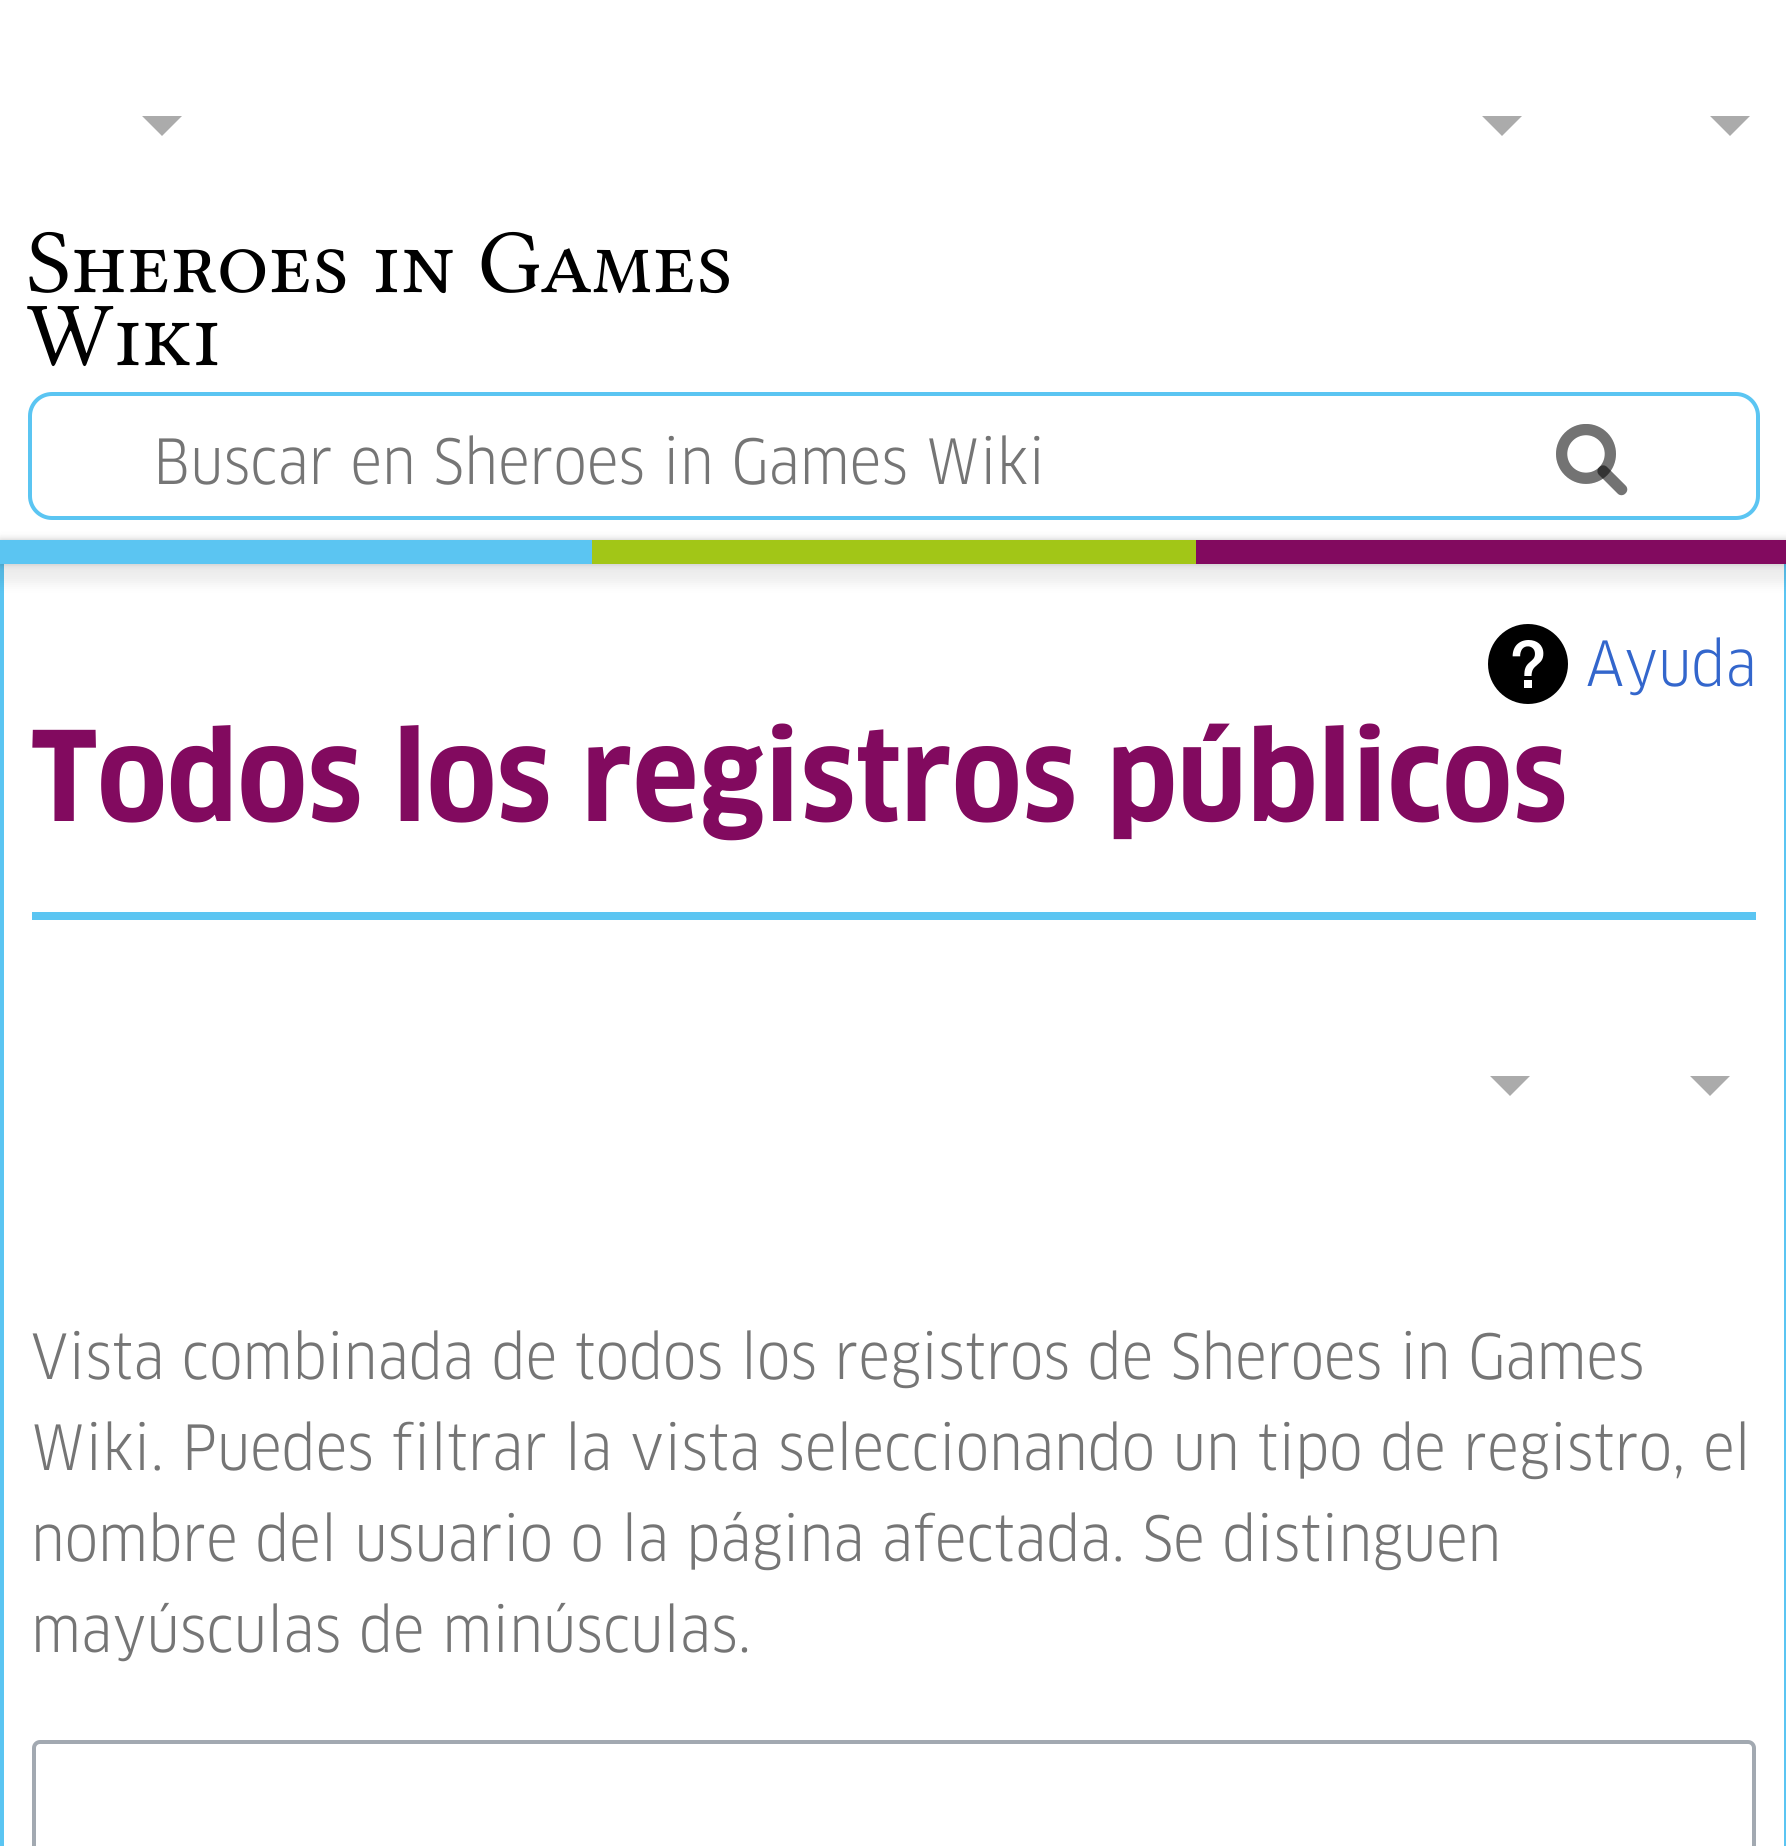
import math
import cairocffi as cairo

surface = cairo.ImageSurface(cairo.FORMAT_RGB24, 1786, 1846)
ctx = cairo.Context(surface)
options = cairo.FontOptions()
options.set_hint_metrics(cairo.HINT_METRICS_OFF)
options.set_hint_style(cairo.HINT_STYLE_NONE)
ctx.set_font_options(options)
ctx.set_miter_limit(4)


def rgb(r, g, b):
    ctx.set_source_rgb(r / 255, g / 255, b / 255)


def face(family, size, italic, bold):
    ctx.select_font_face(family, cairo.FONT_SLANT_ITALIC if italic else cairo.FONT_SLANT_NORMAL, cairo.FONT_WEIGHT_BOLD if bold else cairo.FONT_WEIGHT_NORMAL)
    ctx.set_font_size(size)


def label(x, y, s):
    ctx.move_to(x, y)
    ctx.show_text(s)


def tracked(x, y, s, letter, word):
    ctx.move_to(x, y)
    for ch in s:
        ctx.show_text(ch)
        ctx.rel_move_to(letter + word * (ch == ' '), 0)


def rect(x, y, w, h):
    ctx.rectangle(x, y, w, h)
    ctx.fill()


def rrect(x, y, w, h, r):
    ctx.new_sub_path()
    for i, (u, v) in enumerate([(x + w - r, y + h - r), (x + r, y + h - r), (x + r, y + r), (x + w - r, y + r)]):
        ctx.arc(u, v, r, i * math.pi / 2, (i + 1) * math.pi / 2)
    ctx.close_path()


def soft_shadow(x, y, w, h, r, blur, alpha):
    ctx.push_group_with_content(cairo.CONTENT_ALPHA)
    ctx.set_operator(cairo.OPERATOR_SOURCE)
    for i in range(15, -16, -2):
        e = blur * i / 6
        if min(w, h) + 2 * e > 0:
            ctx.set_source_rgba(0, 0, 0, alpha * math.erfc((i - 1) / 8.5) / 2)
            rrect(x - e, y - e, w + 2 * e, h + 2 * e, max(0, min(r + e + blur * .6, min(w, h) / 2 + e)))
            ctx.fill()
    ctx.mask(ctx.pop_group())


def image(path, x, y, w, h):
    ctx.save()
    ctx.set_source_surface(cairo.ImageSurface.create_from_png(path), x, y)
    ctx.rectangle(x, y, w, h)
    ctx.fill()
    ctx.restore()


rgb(255, 255, 255)
ctx.paint()
rgb(171, 171, 171)
ctx.new_path()
ctx.move_to(1750, 116)
ctx.line_to(1730, 136)
ctx.line_to(1710, 116)
ctx.close_path()
ctx.fill()
face('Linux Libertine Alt', 91.25, 0, 0)
rgb(0, 0, 0)
label(27, 292, 'Sheroes in Games')
label(27, 365, 'Wiki')
rrect(30, 394, 1728, 124, 22)
rgb(91, 197, 242)
ctx.set_line_width(4)
ctx.stroke()
image('image0.png', 1556, 424, 72, 72)
face('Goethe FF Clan', 60.8, 0, 0)
rgb(117, 117, 117)
label(153, 484, 'Buscar en Sheroes in Games Wiki')
image('image1.png', 1556, 424, 72, 72)
rgb(91, 197, 242)
ctx.new_path()
ctx.move_to(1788, 540)
ctx.line_to(1784, 548)
ctx.line_to(1784, 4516)
ctx.curve_to(1784, 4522, 1782, 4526, 1778, 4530)
ctx.line_to(1781, 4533)
ctx.curve_to(1785, 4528, 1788, 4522, 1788, 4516)
ctx.close_path()
ctx.fill()
ctx.new_path()
ctx.move_to(4, 548)
ctx.line_to(0, 540)
ctx.line_to(0, 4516)
ctx.curve_to(0, 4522, 3, 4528, 7, 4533)
ctx.line_to(10, 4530)
ctx.curve_to(6, 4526, 4, 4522, 4, 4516)
ctx.close_path()
ctx.fill()
rgb(0, 0, 0)
soft_shadow(0, 540, 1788, 24, 0, 4, 0.2)
soft_shadow(-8, 544, 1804, 40, 0, 6, 0.07)
rgb(91, 197, 242)
rect(0, 540, 592, 24)
rgb(162, 198, 23)
rect(592, 540, 604, 24)
rgb(130, 10, 95)
rect(1196, 540, 590, 24)
rgb(171, 171, 171)
ctx.new_path()
ctx.move_to(182, 116)
ctx.line_to(162, 136)
ctx.line_to(142, 116)
ctx.close_path()
ctx.fill()
ctx.new_path()
ctx.move_to(1522, 116)
ctx.line_to(1502, 136)
ctx.line_to(1482, 116)
ctx.close_path()
ctx.fill()
image('image2.png', 1488, 624, 80, 80)
rgb(51, 102, 204)
label(1586, 686, 'Ayuda')
rgb(91, 197, 242)
rect(32, 912, 1724, 8)
face('Goethe FF Clan', 121.6, 0, 1)
rgb(130, 10, 95)
label(31, 821, 'Todos los registros públicos')
rgb(171, 171, 171)
ctx.new_path()
ctx.move_to(1530, 1076)
ctx.line_to(1510, 1096)
ctx.line_to(1490, 1076)
ctx.close_path()
ctx.fill()
ctx.new_path()
ctx.move_to(1730, 1076)
ctx.line_to(1710, 1096)
ctx.line_to(1690, 1076)
ctx.close_path()
ctx.fill()
face('Goethe FF Clan', 60.8, 0, 0)
rgb(117, 117, 117)
tracked(31, 1379, 'Vista combinada de todos los registros de Sheroes in Games', 0, -0.25)
tracked(31, 1470, 'Wiki. Puedes filtrar la vista seleccionando un tipo de registro, el', 0, -0.1)
tracked(31, 1561, 'nombre del usuario o la página afectada. Se distinguen', 0, -0.25)
label(31, 1652, 'mayúsculas de minúsculas.')
rrect(34, 1742, 1720, 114, 6)
rgb(162, 169, 177)
ctx.stroke()
surface.write_to_png('render.png')
